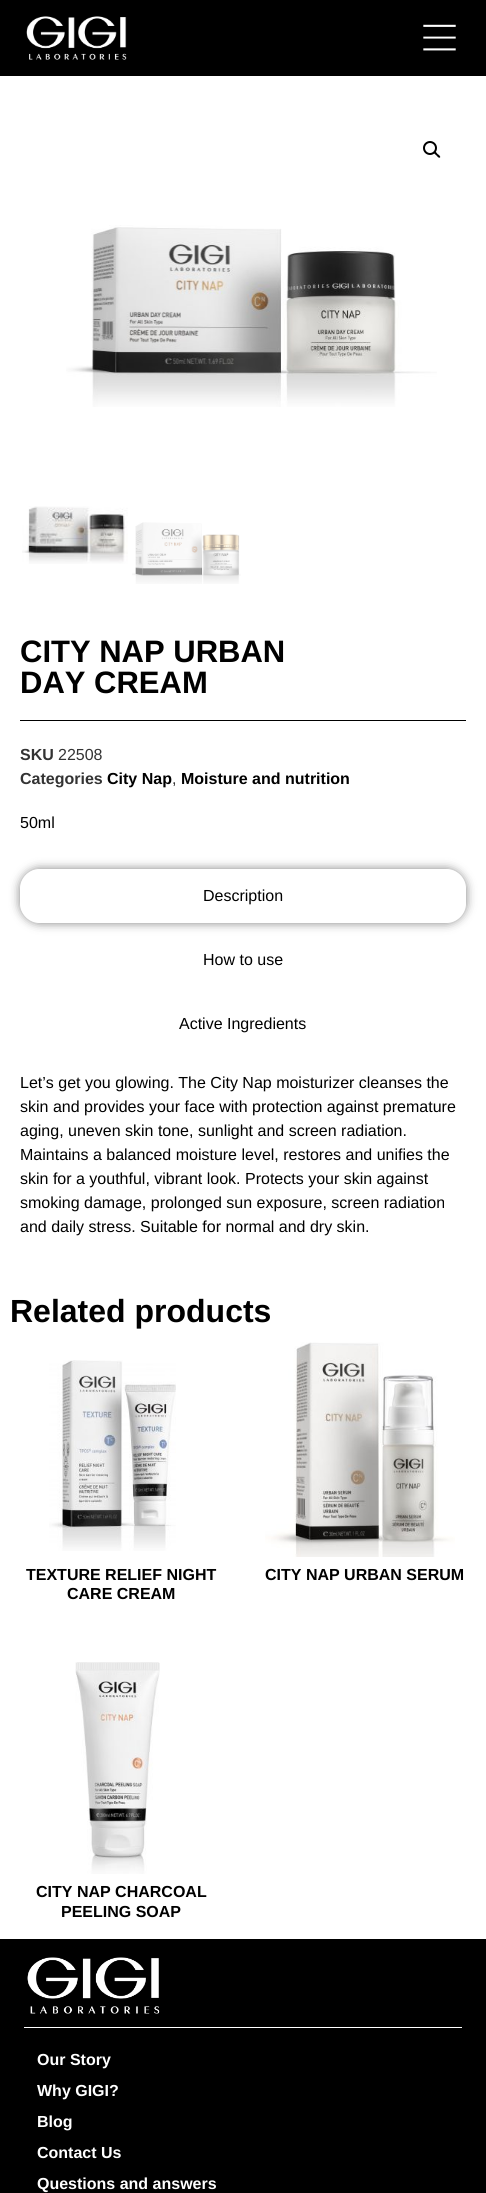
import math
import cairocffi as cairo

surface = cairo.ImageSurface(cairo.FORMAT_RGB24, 486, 2193)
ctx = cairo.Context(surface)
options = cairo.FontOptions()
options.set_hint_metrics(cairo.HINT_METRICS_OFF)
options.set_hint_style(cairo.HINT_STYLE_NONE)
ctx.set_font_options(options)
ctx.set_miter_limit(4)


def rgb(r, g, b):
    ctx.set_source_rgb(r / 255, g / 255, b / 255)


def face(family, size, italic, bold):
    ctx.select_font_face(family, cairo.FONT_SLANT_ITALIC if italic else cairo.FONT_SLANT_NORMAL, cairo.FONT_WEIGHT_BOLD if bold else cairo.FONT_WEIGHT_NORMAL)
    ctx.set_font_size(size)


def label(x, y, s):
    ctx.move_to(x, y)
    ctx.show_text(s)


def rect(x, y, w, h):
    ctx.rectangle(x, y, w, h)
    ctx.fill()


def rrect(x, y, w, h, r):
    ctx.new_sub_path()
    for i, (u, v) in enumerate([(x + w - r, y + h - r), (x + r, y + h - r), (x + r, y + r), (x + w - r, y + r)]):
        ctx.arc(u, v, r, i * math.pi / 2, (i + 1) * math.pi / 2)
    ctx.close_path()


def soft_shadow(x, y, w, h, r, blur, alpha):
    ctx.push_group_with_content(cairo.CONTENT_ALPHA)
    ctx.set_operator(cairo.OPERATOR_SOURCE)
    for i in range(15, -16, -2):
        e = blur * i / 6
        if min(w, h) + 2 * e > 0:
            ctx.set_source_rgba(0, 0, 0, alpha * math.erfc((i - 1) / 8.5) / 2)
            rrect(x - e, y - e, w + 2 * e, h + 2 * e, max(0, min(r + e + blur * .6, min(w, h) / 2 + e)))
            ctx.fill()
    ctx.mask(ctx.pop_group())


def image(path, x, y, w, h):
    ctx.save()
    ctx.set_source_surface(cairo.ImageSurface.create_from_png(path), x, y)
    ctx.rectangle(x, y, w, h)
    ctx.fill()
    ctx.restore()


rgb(255, 255, 255)
ctx.paint()
rgb(0, 0, 0)
rect(0, 0, 486, 76)
image('image0.png', 26, 16, 101, 44)
image('image1.png', 423, 24, 33, 27)
ctx.arc(430, 148, 6, 0, 2 * math.pi)
ctx.stroke()
ctx.new_path()
ctx.move_to(434, 152)
ctx.curve_to(435.5, 150.5, 437, 153.5, 437.5, 154)
ctx.curve_to(438.5, 154.5, 441, 156.5, 440, 157.5)
ctx.curve_to(438.5, 158.5, 437, 156, 436.5, 155.5)
ctx.curve_to(435.5, 154.5, 433, 153, 434, 152)
ctx.close_path()
ctx.fill()
image('image2.png', 66, 225, 371, 182)
image('image3.png', 22, 506, 106, 58)
image('image4.png', 132, 522, 109, 62)
face('Liberation Sans', 31, 0, 1)
label(20, 662, 'CITY NAP URBAN')
label(20, 693, 'DAY CREAM')
rect(20, 720, 446, 1)
face('Liberation Sans', 16, 0, 1)
rgb(51, 51, 51)
label(20, 760, 'SKU')
face('Liberation Sans', 16, 0, 0)
label(58, 760, '22508')
face('Liberation Sans', 16, 0, 1)
label(20, 784, 'Categories')
rgb(0, 0, 0)
label(107, 784, 'City Nap')
face('Liberation Sans', 16, 0, 0)
rgb(51, 51, 51)
label(172, 784, ',')
face('Liberation Sans', 16, 0, 1)
rgb(0, 0, 0)
label(181, 784, 'Moisture and nutrition')
face('Liberation Sans', 16, 0, 0)
label(20, 828, '50ml')
ctx.save()
ctx.set_fill_rule(cairo.FILL_RULE_EVEN_ODD)
ctx.new_path()
ctx.move_to(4, 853)
ctx.line_to(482, 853)
ctx.line_to(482, 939)
ctx.line_to(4, 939)
ctx.close_path()
ctx.move_to(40, 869)
ctx.line_to(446, 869)
ctx.curve_to(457, 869, 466, 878, 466, 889)
ctx.line_to(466, 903)
ctx.curve_to(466, 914, 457, 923, 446, 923)
ctx.line_to(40, 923)
ctx.curve_to(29, 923, 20, 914, 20, 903)
ctx.line_to(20, 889)
ctx.curve_to(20, 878, 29, 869, 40, 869)
ctx.close_path()
ctx.clip()
rgb(0, 0, 0)
soft_shadow(20, 869, 446, 54, 20, 5, 0.5)
ctx.restore()
label(203, 901, 'Description')
label(203, 965, 'How to use')
label(179, 1029, 'Active Ingredients')
label(20, 1088, 'Let’s get you glowing. The City Nap moisturizer cleanses the')
label(20, 1112, 'skin and provides your face with protection against premature')
label(20, 1136, 'aging, uneven skin tone, sunlight and screen radiation.')
label(20, 1160, 'Maintains a balanced moisture level, restores and unifies the')
label(20, 1184, 'skin for a youthful, vibrant look. Protects your skin against')
label(20, 1208, 'smoking damage, prolonged sun exposure, screen radiation')
label(20, 1232, 'and daily stress. Suitable for normal and dry skin.')
face('Liberation Sans', 32, 0, 1)
label(10, 1322, 'Related products')
image('image5.png', 49, 1360, 127, 191)
face('Liberation Sans', 16, 0, 1)
label(26, 1580, 'TEXTURE RELIEF NIGHT')
label(67, 1599, 'CARE CREAM')
image('image6.png', 265, 1342, 190, 215)
label(265, 1580, 'CITY NAP URBAN SERUM')
image('image7.png', 75, 1662, 85, 212)
label(36, 1897, 'CITY NAP CHARCOAL')
label(61, 1917, 'PEELING SOAP')
rect(0, 1939, 486, 254)
image('image8.png', 27, 1957, 133, 57)
rgb(255, 255, 255)
rect(24, 2027, 438, 1)
label(37, 2065, 'Our Story')
label(37, 2096, 'Why GIGI?')
label(37, 2127, 'Blog')
label(37, 2158, 'Contact Us')
label(37, 2189, 'Questions and answers')
surface.write_to_png('render.png')
